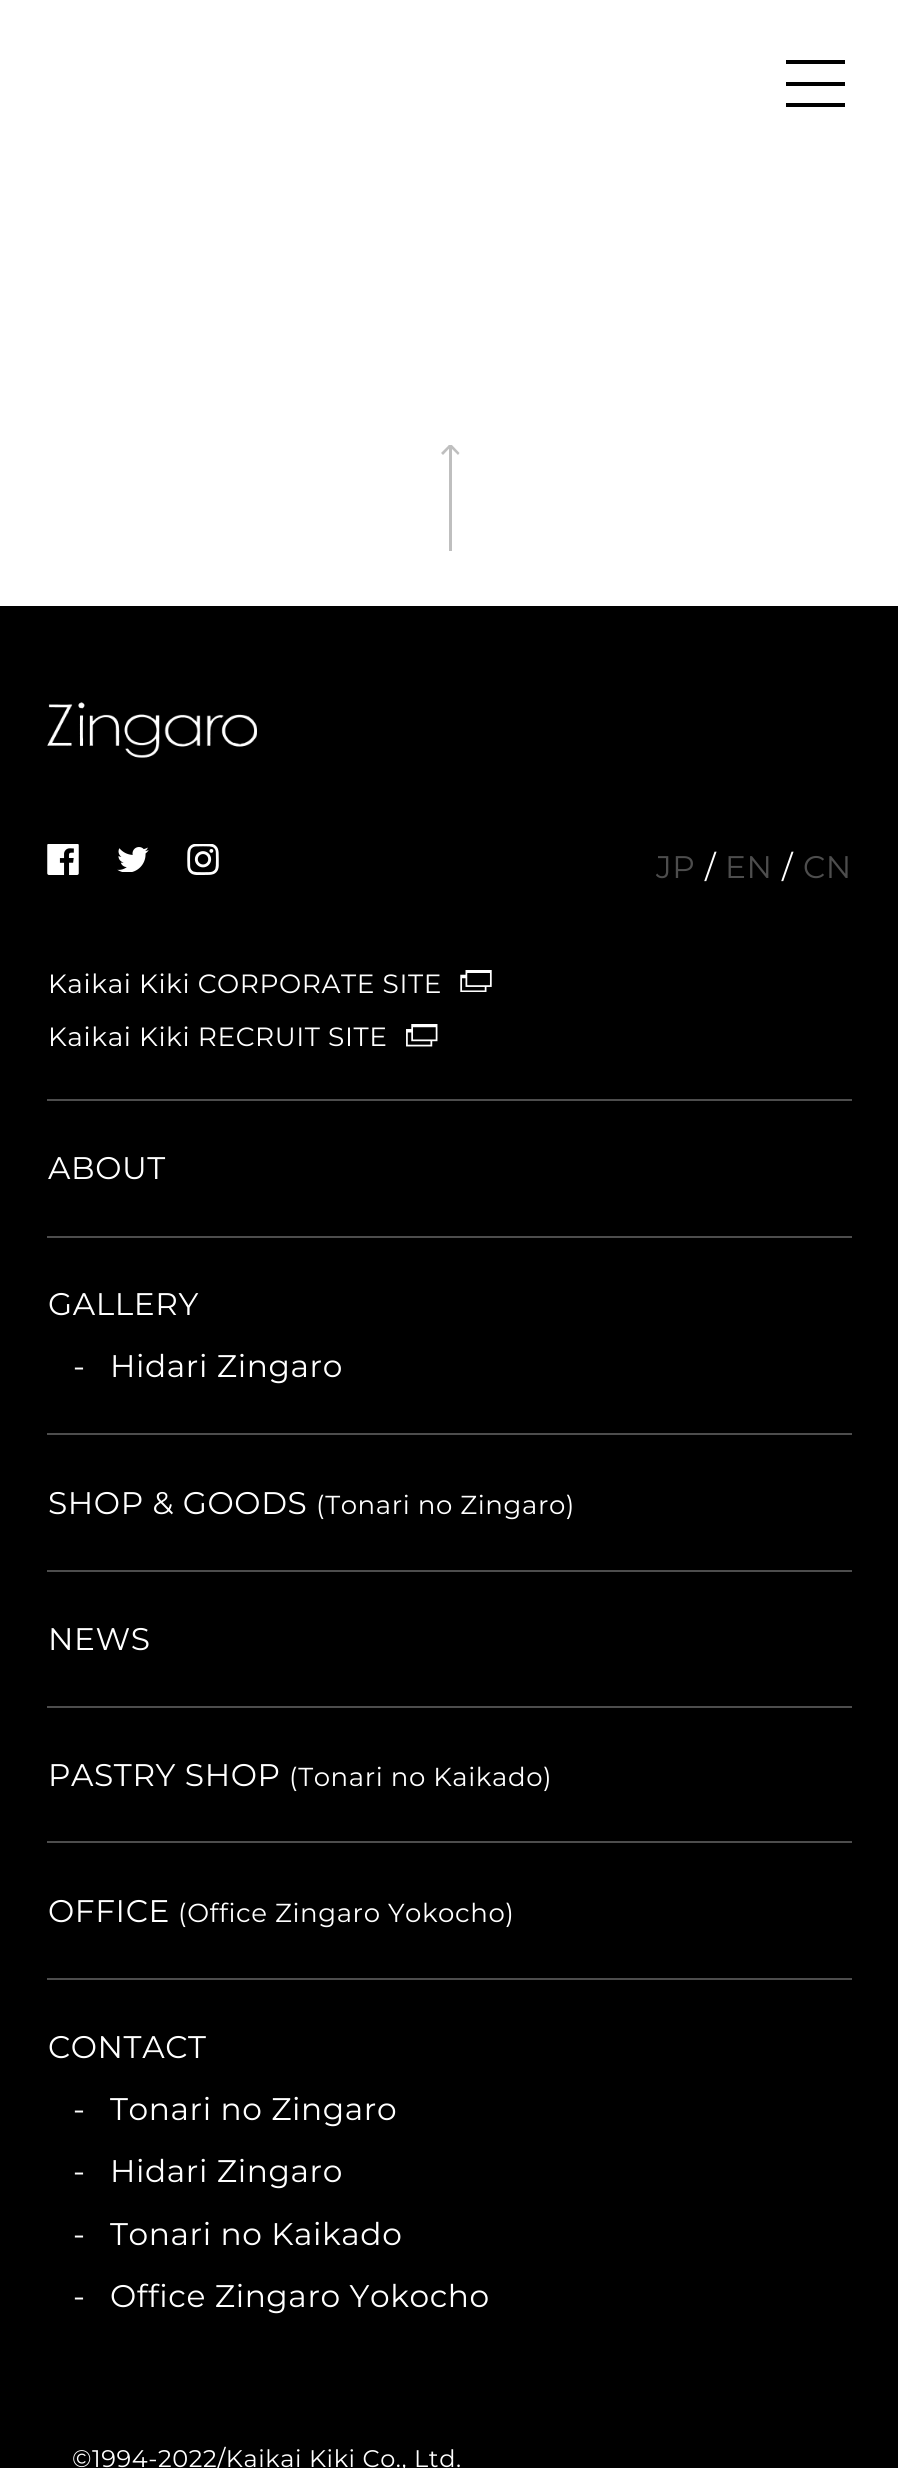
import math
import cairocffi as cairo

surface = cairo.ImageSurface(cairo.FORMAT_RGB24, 898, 2468)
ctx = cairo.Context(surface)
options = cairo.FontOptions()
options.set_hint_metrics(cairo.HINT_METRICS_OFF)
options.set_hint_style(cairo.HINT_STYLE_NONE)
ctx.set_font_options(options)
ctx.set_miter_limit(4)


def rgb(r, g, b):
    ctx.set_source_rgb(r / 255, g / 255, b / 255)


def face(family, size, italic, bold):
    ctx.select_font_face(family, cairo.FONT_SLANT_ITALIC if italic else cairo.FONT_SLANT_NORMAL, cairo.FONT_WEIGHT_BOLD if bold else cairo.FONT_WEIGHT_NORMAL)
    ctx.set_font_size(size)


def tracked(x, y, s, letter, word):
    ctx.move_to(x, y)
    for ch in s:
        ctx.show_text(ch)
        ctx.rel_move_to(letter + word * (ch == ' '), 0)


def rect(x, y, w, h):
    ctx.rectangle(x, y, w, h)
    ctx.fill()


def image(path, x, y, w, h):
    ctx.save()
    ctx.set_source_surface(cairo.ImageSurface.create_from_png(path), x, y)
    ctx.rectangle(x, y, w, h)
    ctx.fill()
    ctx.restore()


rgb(255, 255, 255)
ctx.paint()
rgb(0, 0, 0)
rect(786, 60, 59, 4)
rect(786, 82, 59, 4)
rect(786, 103, 59, 4)
rgb(191, 191, 191)
rect(449, 446, 3, 105)
ctx.new_path()
ctx.move_to(458, 455)
ctx.line_to(448.5, 445.5)
ctx.line_to(450.5, 443.5)
ctx.line_to(459.5, 453)
ctx.close_path()
ctx.fill()
ctx.new_path()
ctx.move_to(443, 455)
ctx.line_to(441, 453)
ctx.line_to(450.5, 443.5)
ctx.line_to(452, 445.5)
ctx.close_path()
ctx.fill()
rgb(255, 255, 255)
rect(449, 443, 3, 2)
rgb(0, 0, 0)
rect(0, 606, 898, 1862)
image('image0.png', 47, 702, 210, 56)
image('image1.png', 47, 844, 32, 31)
image('image2.png', 117, 847, 32, 25)
image('image3.png', 187, 844, 32, 31)
face('Montserrat', 31.25, 0, 0)
rgb(77, 77, 77)
tracked(656, 878, 'JP', 0.6, 0)
rgb(255, 255, 255)
tracked(705, 878, '/', 0.6, 0)
rgb(77, 77, 77)
tracked(725, 878, 'EN', 0.6, 0)
rgb(255, 255, 255)
tracked(782, 878, '/', 0.6, 0)
rgb(77, 77, 77)
tracked(803, 878, 'CN', 0.6, 0)
face('Montserrat', 26.4, 0, 0)
rgb(255, 255, 255)
tracked(48, 993, 'Kaikai Kiki CORPORATE SITE', 0.6, 0)
image('image4.png', 460, 970, 32, 22)
tracked(48, 1046, 'Kaikai Kiki RECRUIT SITE', 0.6, 0)
image('image5.png', 406, 1024, 32, 23)
rgb(77, 77, 77)
rect(47, 1099, 805, 2)
face('Montserrat', 31.25, 0, 0)
rgb(255, 255, 255)
tracked(48, 1179, 'ABOUT', 0.6, 0)
rgb(77, 77, 77)
rect(47, 1236, 805, 2)
rgb(255, 255, 255)
tracked(48, 1315, 'GALLERY', 0.6, 0)
tracked(73, 1377, '-', 0.6, 0)
tracked(110, 1377, 'Hidari Zingaro', 0.6, 0)
rgb(77, 77, 77)
rect(47, 1433, 805, 2)
rgb(255, 255, 255)
tracked(48, 1514, 'SHOP & GOODS', 0.6, 0)
face('Montserrat', 26, 0, 0)
tracked(316, 1514, '(Tonari no Zingaro)', 0.6, 0)
rgb(77, 77, 77)
rect(47, 1570, 805, 2)
face('Montserrat', 31.25, 0, 0)
rgb(255, 255, 255)
tracked(48, 1650, 'NEWS', 0.6, 0)
rgb(77, 77, 77)
rect(47, 1706, 805, 2)
rgb(255, 255, 255)
tracked(48, 1786, 'PASTRY SHOP', 0.6, 0)
face('Montserrat', 26, 0, 0)
tracked(289, 1786, '(Tonari no Kaikado)', 0.6, 0)
rgb(77, 77, 77)
rect(47, 1841, 805, 2)
face('Montserrat', 31.25, 0, 0)
rgb(255, 255, 255)
tracked(48, 1922, 'OFFICE', 0.6, 0)
face('Montserrat', 26, 0, 0)
tracked(178, 1922, '(Office Zingaro Yokocho)', 0.6, 0)
rgb(77, 77, 77)
rect(47, 1978, 805, 2)
face('Montserrat', 31.25, 0, 0)
rgb(255, 255, 255)
tracked(48, 2058, 'CONTACT', 0.6, 0)
tracked(73, 2120, '-', 0.6, 0)
tracked(110, 2120, 'Tonari no Zingaro', 0.6, 0)
tracked(73, 2182, '-', 0.6, 0)
tracked(110, 2182, 'Hidari Zingaro', 0.6, 0)
tracked(73, 2245, '-', 0.6, 0)
tracked(110, 2245, 'Tonari no Kaikado', 0.6, 0)
tracked(73, 2307, '-', 0.6, 0)
tracked(110, 2307, 'Office Zingaro Yokocho', 0.6, 0)
face('Montserrat', 24, 0, 0)
tracked(72, 2467, '©1994-2022/Kaikai Kiki Co., Ltd.', 0.6, 0)
surface.write_to_png('render.png')
